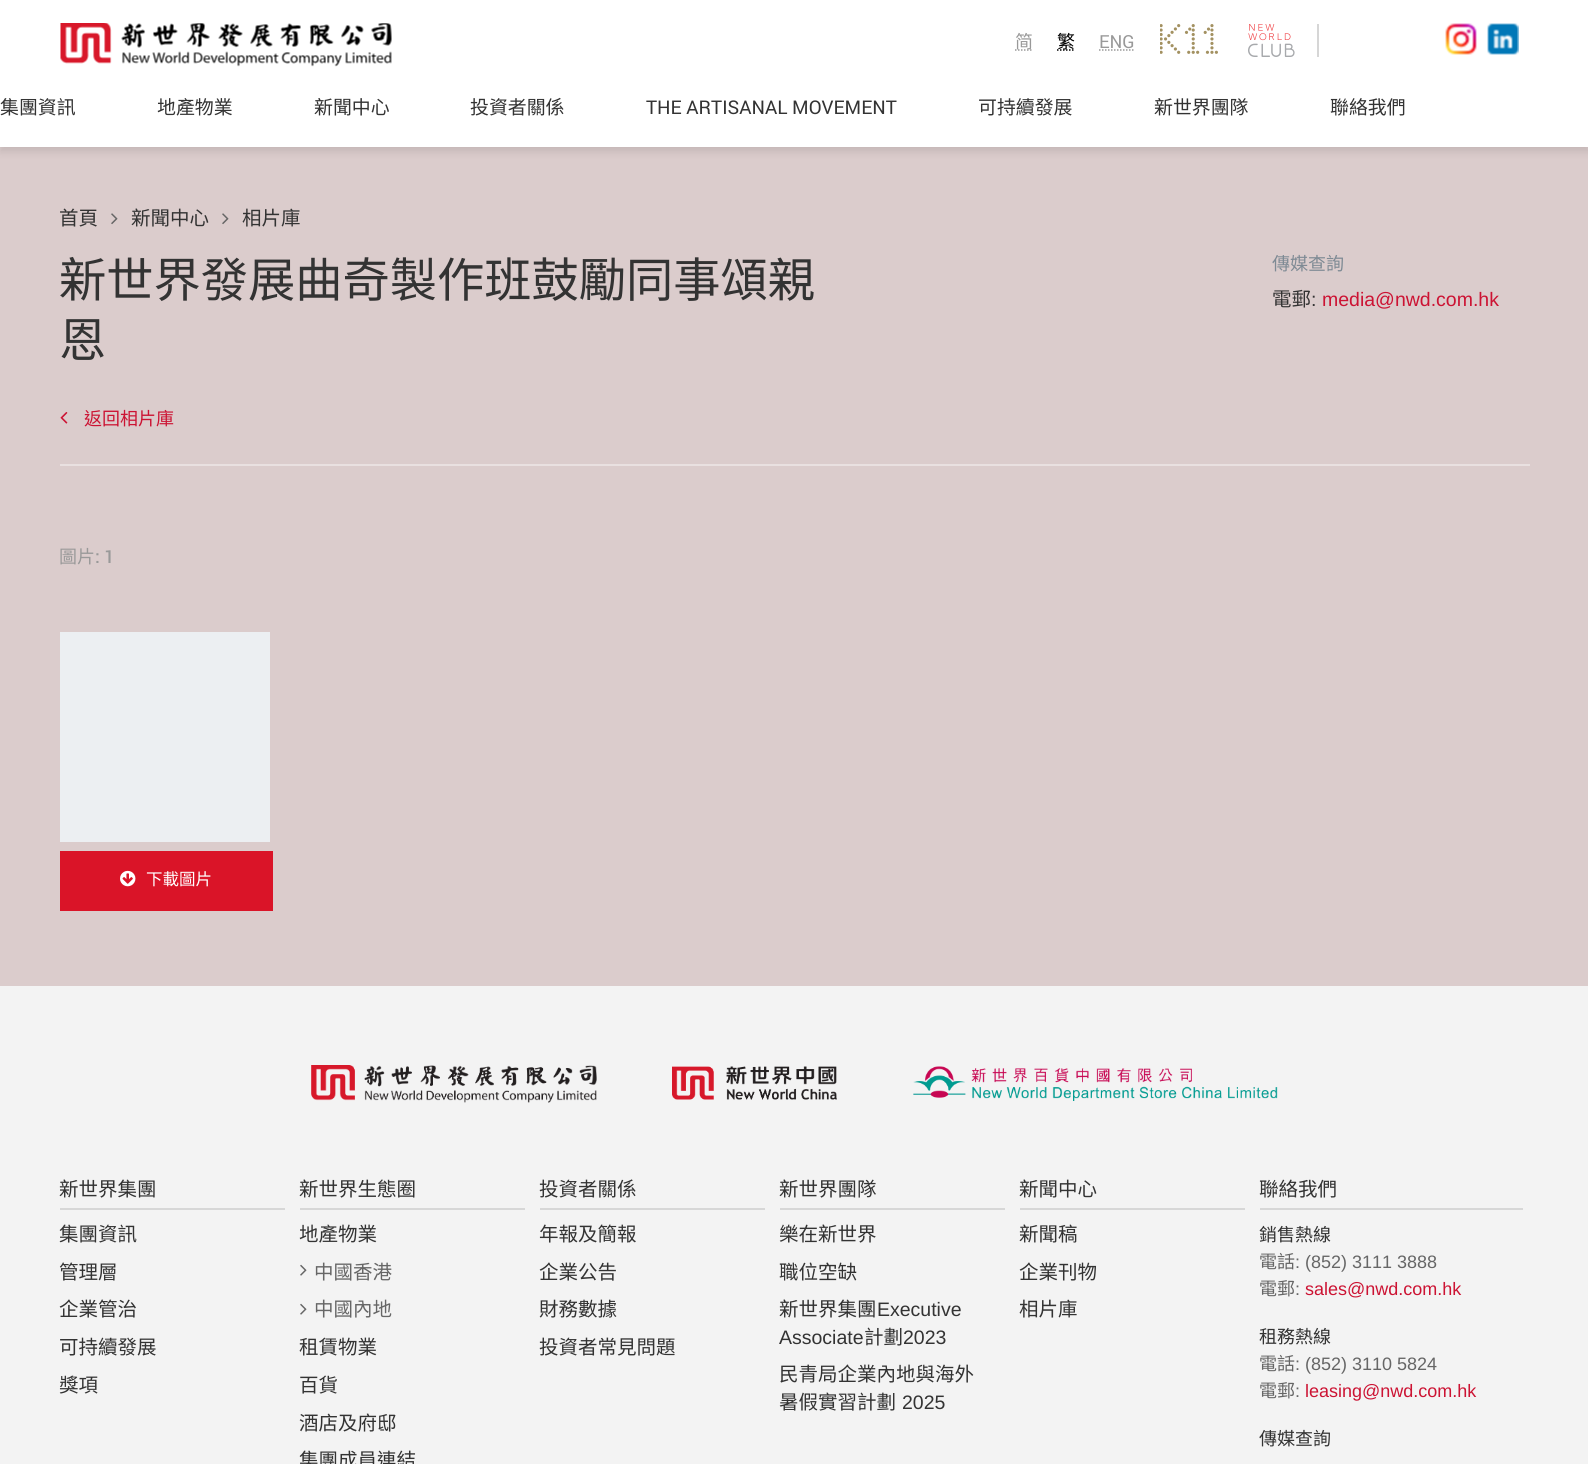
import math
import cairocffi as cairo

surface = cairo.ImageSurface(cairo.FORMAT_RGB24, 1588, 1464)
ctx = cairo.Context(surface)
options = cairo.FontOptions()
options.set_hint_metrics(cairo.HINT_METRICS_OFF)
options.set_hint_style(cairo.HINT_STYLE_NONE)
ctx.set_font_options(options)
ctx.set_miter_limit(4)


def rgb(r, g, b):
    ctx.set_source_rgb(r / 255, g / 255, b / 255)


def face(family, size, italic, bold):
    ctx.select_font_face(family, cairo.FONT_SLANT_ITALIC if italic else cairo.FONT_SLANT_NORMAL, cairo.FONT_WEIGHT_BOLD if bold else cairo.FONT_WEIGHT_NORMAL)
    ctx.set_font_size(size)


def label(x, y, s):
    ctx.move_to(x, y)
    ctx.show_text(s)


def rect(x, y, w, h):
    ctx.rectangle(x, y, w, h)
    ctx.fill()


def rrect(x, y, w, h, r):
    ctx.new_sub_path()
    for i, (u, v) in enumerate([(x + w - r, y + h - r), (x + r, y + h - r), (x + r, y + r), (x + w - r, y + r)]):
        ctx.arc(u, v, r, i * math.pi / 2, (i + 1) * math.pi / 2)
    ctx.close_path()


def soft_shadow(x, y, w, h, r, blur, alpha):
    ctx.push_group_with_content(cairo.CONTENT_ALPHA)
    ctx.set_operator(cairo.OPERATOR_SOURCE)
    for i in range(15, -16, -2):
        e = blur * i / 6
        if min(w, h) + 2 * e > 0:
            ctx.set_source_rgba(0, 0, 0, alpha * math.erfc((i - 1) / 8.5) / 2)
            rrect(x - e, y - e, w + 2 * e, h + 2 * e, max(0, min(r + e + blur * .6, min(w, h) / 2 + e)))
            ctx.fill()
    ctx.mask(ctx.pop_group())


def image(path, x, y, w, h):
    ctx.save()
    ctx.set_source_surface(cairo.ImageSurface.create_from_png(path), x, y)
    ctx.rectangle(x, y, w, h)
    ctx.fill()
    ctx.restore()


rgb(219, 204, 204)
ctx.paint()
rgb(0, 0, 0)
soft_shadow(0, 5, 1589, 147, 0, 4, 0.1)
rgb(255, 255, 255)
rect(0, 0, 1588, 147)
image('image0.png', 60, 23, 332, 44)
ctx.new_path()
ctx.move_to(1015, 50)
ctx.line_to(1033, 50)
rgb(153, 153, 153)
ctx.set_line_width(1.5)
ctx.set_dash([1.5, 1.5])
ctx.stroke()
face('Noto Sans CJK HK', 18, 0, 0)
label(1015, 48, '简')
ctx.new_path()
ctx.move_to(1057, 50)
ctx.line_to(1075, 50)
rgb(0, 0, 0)
ctx.stroke()
label(1057, 48, '繁')
face('Roboto', 18, 0, 0)
rgb(153, 153, 153)
label(1099, 48, 'ENG')
ctx.new_path()
ctx.move_to(1099, 50)
ctx.line_to(1135, 50)
ctx.stroke()
image('image1.png', 1160, 24, 58, 30)
image('image2.png', 1248, 24, 47, 33)
rgb(214, 214, 214)
rect(1317, 24, 2, 33)
image('image3.png', 1445, 23, 32, 32)
image('image4.png', 1487, 23, 32, 32)
face('Noto Sans CJK HK', 18.9, 0, 0)
rgb(51, 51, 51)
label(0, 114, '集團資訊')
label(157, 114, '地產物業')
label(314, 114, '新聞中心')
label(470, 114, '投資者關係')
face('Roboto', 18.9, 0, 0)
label(646, 114, 'THE ARTISANAL MOVEMENT')
face('Noto Sans CJK HK', 18.9, 0, 0)
label(978, 114, '可持續發展')
label(1154, 114, '新世界團隊')
label(1330, 114, '聯絡我們')
face('Noto Sans CJK HK', 19.5, 0, 0)
label(59, 225, '首頁')
image('image5.png', 111, 213, 7, 12)
label(131, 225, '新聞中心')
image('image5.png', 222, 213, 7, 12)
label(242, 225, '相片庫')
face('Noto Sans CJK HK', 47.25, 0, 0)
label(59, 297, '新世界發展曲奇製作班鼓勵同事頌親')
label(59, 357, '恩')
face('Noto Sans CJK HK', 18, 0, 0)
rgb(126, 138, 148)
label(1272, 270, '傳媒查詢')
face('Noto Sans CJK HK', 19.5, 0, 0)
rgb(51, 51, 51)
label(1272, 306, '電郵')
face('Liberation Sans', 19.5, 0, 0)
label(1311, 306, ':')
rgb(204, 19, 51)
label(1322, 306, 'media@nwd.com.hk')
image('image6.png', 60, 412, 8, 12)
face('Noto Sans CJK HK', 18, 0, 0)
label(84, 425, '返回相片庫')
rgb(233, 224, 224)
rect(60, 464, 1470, 2)
rgb(153, 153, 153)
label(59, 563, '圖片')
face('Roboto Medium', 18, 0, 0)
label(95, 563, ': 1')
rgb(236, 239, 242)
rect(60, 632, 210, 210)
rgb(218, 20, 40)
rect(60, 851, 213, 60)
image('image7.png', 120, 870, 16, 17)
face('Noto Sans CJK HK', 16.5, 0, 0)
rgb(255, 255, 255)
label(146, 885, '下載圖片')
rgb(243, 243, 243)
rect(0, 986, 1588, 478)
image('image8.png', 311, 1065, 286, 38)
image('image9.png', 672, 1066, 165, 34)
image('image10.png', 913, 1066, 365, 35)
rgb(215, 215, 215)
rect(60, 1208, 225, 2)
face('Noto Sans CJK HK', 19.5, 0, 0)
rgb(51, 51, 51)
label(59, 1196, '新世界集團')
label(59, 1241, '集團資訊')
label(59, 1279, '管理層')
label(59, 1316, '企業管治')
label(59, 1354, '可持續發展')
label(59, 1392, '獎項')
rgb(215, 215, 215)
rect(300, 1208, 225, 2)
rgb(51, 51, 51)
label(299, 1196, '新世界生態圈')
label(299, 1241, '地產物業')
image('image11.png', 300, 1264, 7, 12)
rgb(102, 102, 102)
label(314, 1279, '中國香港')
image('image11.png', 300, 1303, 7, 12)
label(314, 1316, '中國內地')
rgb(51, 51, 51)
label(299, 1354, '租賃物業')
label(299, 1392, '百貨')
label(299, 1430, '酒店及府邸')
label(299, 1467, '集團成員連結')
rgb(215, 215, 215)
rect(540, 1208, 225, 2)
rgb(51, 51, 51)
label(539, 1196, '投資者關係')
label(539, 1241, '年報及簡報')
label(539, 1279, '企業公告')
label(539, 1316, '財務數據')
label(539, 1354, '投資者常見問題')
rgb(215, 215, 215)
rect(780, 1208, 225, 2)
rgb(51, 51, 51)
label(779, 1196, '新世界團隊')
label(779, 1241, '樂在新世界')
label(779, 1279, '職位空缺')
label(779, 1316, '新世界集團')
face('Liberation Sans', 19.5, 0, 0)
label(877, 1316, 'Executive')
label(779, 1344, 'Associate')
face('Noto Sans CJK HK', 19.5, 0, 0)
label(864, 1344, '計劃')
face('Liberation Sans', 19.5, 0, 0)
label(903, 1344, '2023')
face('Noto Sans CJK HK', 19.5, 0, 0)
label(779, 1381, '民青局企業內地與海外')
label(779, 1409, '暑假實習計劃')
face('Liberation Sans', 19.5, 0, 0)
label(902, 1409, '2025')
rgb(215, 215, 215)
rect(1020, 1208, 225, 2)
face('Noto Sans CJK HK', 19.5, 0, 0)
rgb(51, 51, 51)
label(1019, 1196, '新聞中心')
label(1019, 1241, '新聞稿')
label(1019, 1279, '企業刊物')
label(1019, 1316, '相片庫')
rgb(215, 215, 215)
rect(1260, 1208, 263, 2)
rgb(51, 51, 51)
label(1259, 1196, '聯絡我們')
face('Noto Sans CJK HK', 18, 0, 0)
label(1259, 1241, '銷售熱線')
rgb(102, 102, 102)
label(1259, 1268, '電話')
face('Liberation Sans', 18, 0, 0)
label(1295, 1268, ': (852) 3111 3888')
face('Noto Sans CJK HK', 18, 0, 0)
label(1259, 1295, '電郵')
face('Liberation Sans', 18, 0, 0)
label(1295, 1295, ':')
rgb(204, 19, 51)
label(1305, 1295, 'sales@nwd.com.hk')
face('Noto Sans CJK HK', 18, 0, 0)
rgb(51, 51, 51)
label(1259, 1343, '租務熱線')
rgb(102, 102, 102)
label(1259, 1370, '電話')
face('Liberation Sans', 18, 0, 0)
label(1295, 1370, ': (852) 3110 5824')
face('Noto Sans CJK HK', 18, 0, 0)
label(1259, 1397, '電郵')
face('Liberation Sans', 18, 0, 0)
label(1295, 1397, ':')
rgb(204, 19, 51)
label(1305, 1397, 'leasing@nwd.com.hk')
face('Noto Sans CJK HK', 18, 0, 0)
rgb(51, 51, 51)
label(1259, 1445, '傳媒查詢')
surface.write_to_png('render.png')
